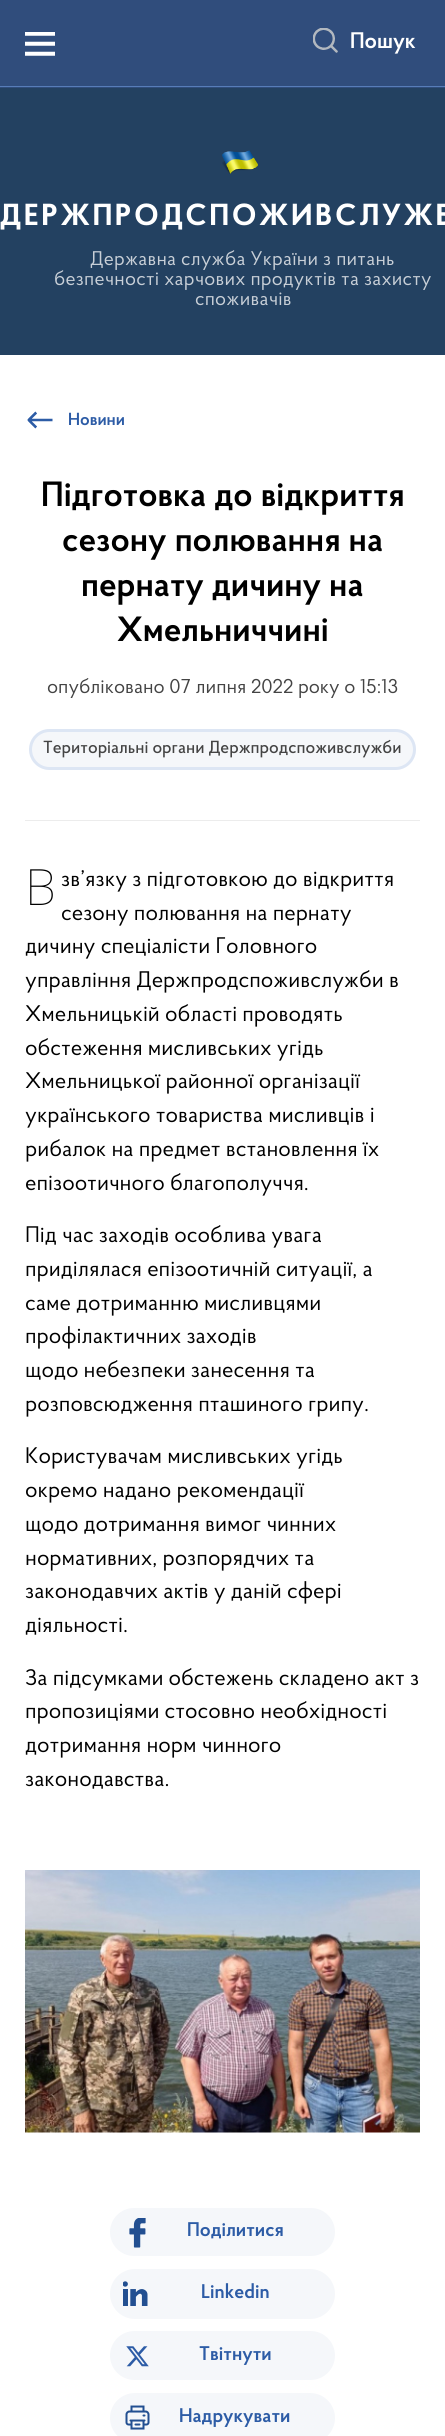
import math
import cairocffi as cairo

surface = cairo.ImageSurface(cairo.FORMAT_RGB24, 445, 2436)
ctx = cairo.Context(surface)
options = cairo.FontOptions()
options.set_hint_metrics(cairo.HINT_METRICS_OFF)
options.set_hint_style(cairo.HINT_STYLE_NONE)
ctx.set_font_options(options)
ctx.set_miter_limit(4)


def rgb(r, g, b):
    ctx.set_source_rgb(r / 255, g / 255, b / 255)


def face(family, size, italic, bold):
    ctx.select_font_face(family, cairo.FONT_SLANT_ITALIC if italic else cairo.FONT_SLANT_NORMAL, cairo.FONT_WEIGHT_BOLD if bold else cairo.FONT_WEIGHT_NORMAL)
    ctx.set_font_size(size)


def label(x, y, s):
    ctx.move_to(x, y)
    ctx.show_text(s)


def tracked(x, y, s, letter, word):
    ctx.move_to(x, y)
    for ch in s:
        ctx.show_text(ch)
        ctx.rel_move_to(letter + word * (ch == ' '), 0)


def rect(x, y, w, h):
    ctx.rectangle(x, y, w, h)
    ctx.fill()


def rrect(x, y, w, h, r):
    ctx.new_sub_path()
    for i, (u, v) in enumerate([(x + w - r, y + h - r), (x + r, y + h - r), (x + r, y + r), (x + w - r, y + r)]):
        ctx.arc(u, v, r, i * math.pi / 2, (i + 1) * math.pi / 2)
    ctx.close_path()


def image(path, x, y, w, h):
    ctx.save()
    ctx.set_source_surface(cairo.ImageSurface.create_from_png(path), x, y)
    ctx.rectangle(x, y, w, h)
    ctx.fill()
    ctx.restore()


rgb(255, 255, 255)
ctx.paint()
rgb(35, 65, 97)
rect(0, 88, 445, 267)
rgb(48, 77, 124)
rect(0, 0, 445, 88)
rgb(87, 125, 184)
rect(0, 86, 445, 1)
image('image0.png', 25, 32, 30, 24)
image('image1.png', 313, 28, 25, 25)
face('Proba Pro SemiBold', 22.5, 0, 0)
rgb(255, 255, 255)
label(350, 48, 'Пошук')
image('image2.png', 222, 150, 36, 24)
face('Proba Pro', 30.4, 0, 1)
tracked(0, 225, 'ДЕРЖПРОДСПОЖИВСЛУЖБ', 3, 0)
face('Proba Pro', 19.75, 0, 0)
rgb(200, 207, 215)
tracked(90, 265, 'Державна служба України з питань', 0.25, 0)
tracked(54, 285, 'безпечності харчових продуктів та захисту', 0.25, 0)
tracked(195, 305, 'споживачів', 0.25, 0)
image('image3.png', 27, 411, 26, 18)
face('Proba Pro SemiBold', 17.5, 0, 0)
rgb(45, 92, 166)
label(68, 425, 'Новини')
face('Proba Pro SemiBold', 35, 0, 0)
rgb(0, 0, 0)
label(41, 506, 'Підготовка до відкриття')
label(62, 551, 'сезону полювання на')
label(81, 596, 'пернату дичину на')
label(117, 641, 'Хмельниччині')
face('Proba Pro', 20, 0, 0)
rgb(68, 68, 68)
label(47, 693, 'опубліковано 07 липня 2022 року о 15:13')
rgb(245, 247, 250)
rrect(29, 729, 387, 41, 20.5)
ctx.fill()
rrect(30.5, 730.5, 384, 38, 19)
ctx.set_source_rgba(0, 0.294, 0.757, 0.1)
ctx.set_line_width(3)
ctx.stroke()
face('Proba Pro Medium', 17.5, 0, 0)
rgb(68, 68, 68)
label(43, 753, 'Територіальні органи Держпродспоживслужби')
rgb(236, 236, 236)
rect(25, 820, 395, 1)
face('Noto Sans Thin', 50, 0, 0)
rgb(0, 0, 0)
label(25, 905, 'В')
face('Proba Pro', 22.5, 0, 0)
label(61, 886, 'зв’язку з підготовкою до відкриття')
label(61, 920, 'сезону полювання на пернату')
label(25, 953, 'дичину спеціалісти Головного')
label(25, 987, 'управління Держпродспоживслужби в')
label(25, 1021, 'Хмельницькій області проводять')
label(25, 1055, 'обстеження мисливських угідь')
label(25, 1088, 'Хмельницької районної організації')
label(25, 1122, 'українського товариства мисливців і')
label(25, 1156, 'рибалок на предмет встановлення їх')
label(25, 1190, 'епізоотичного благополуччя.')
label(25, 1242, 'Під час заходів особлива увага')
label(25, 1276, 'приділялася епізоотичній ситуації, а')
label(25, 1310, 'саме дотриманню мисливцями')
label(25, 1343, 'профілактичних заходів')
label(25, 1377, 'щодо небезпеки занесення та')
label(25, 1411, 'розповсюдження пташиного грипу.')
label(25, 1463, 'Користувачам мисливських угідь')
label(25, 1497, 'окремо надано рекомендації')
label(25, 1531, 'щодо дотримання вимог чинних')
label(25, 1565, 'нормативних, розпорядчих та')
label(25, 1598, 'законодавчих актів у даній сфері')
label(25, 1632, 'діяльності.')
label(25, 1685, 'За підсумками обстежень складено акт з')
label(25, 1718, 'пропозиціями стосовно необхідності')
label(25, 1752, 'дотримання норм чинного')
label(25, 1786, 'законодавства.')
image('image4.png', 25, 1870, 395, 263)
rgb(245, 247, 250)
rrect(110, 2208, 225, 48, 24)
ctx.fill()
image('image5.png', 129, 2218, 17, 30)
face('Proba Pro SemiBold', 19.75, 0, 0)
rgb(45, 92, 166)
label(187, 2236, 'Поділитися')
rgb(245, 247, 250)
rrect(110, 2269, 225, 50, 25)
ctx.fill()
image('image6.png', 123, 2281, 25, 25)
rgb(45, 92, 166)
label(201, 2298, 'Linkedin')
rgb(245, 247, 250)
rrect(110, 2331, 225, 49, 24.5)
ctx.fill()
image('image7.png', 126, 2346, 23, 21)
rgb(45, 92, 166)
label(199, 2360, 'Твітнути')
rgb(245, 247, 250)
rrect(110, 2393, 225, 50, 25)
ctx.fill()
image('image8.png', 125, 2405, 25, 25)
rgb(45, 92, 166)
label(179, 2422, 'Надрукувати')
surface.write_to_png('render.png')
